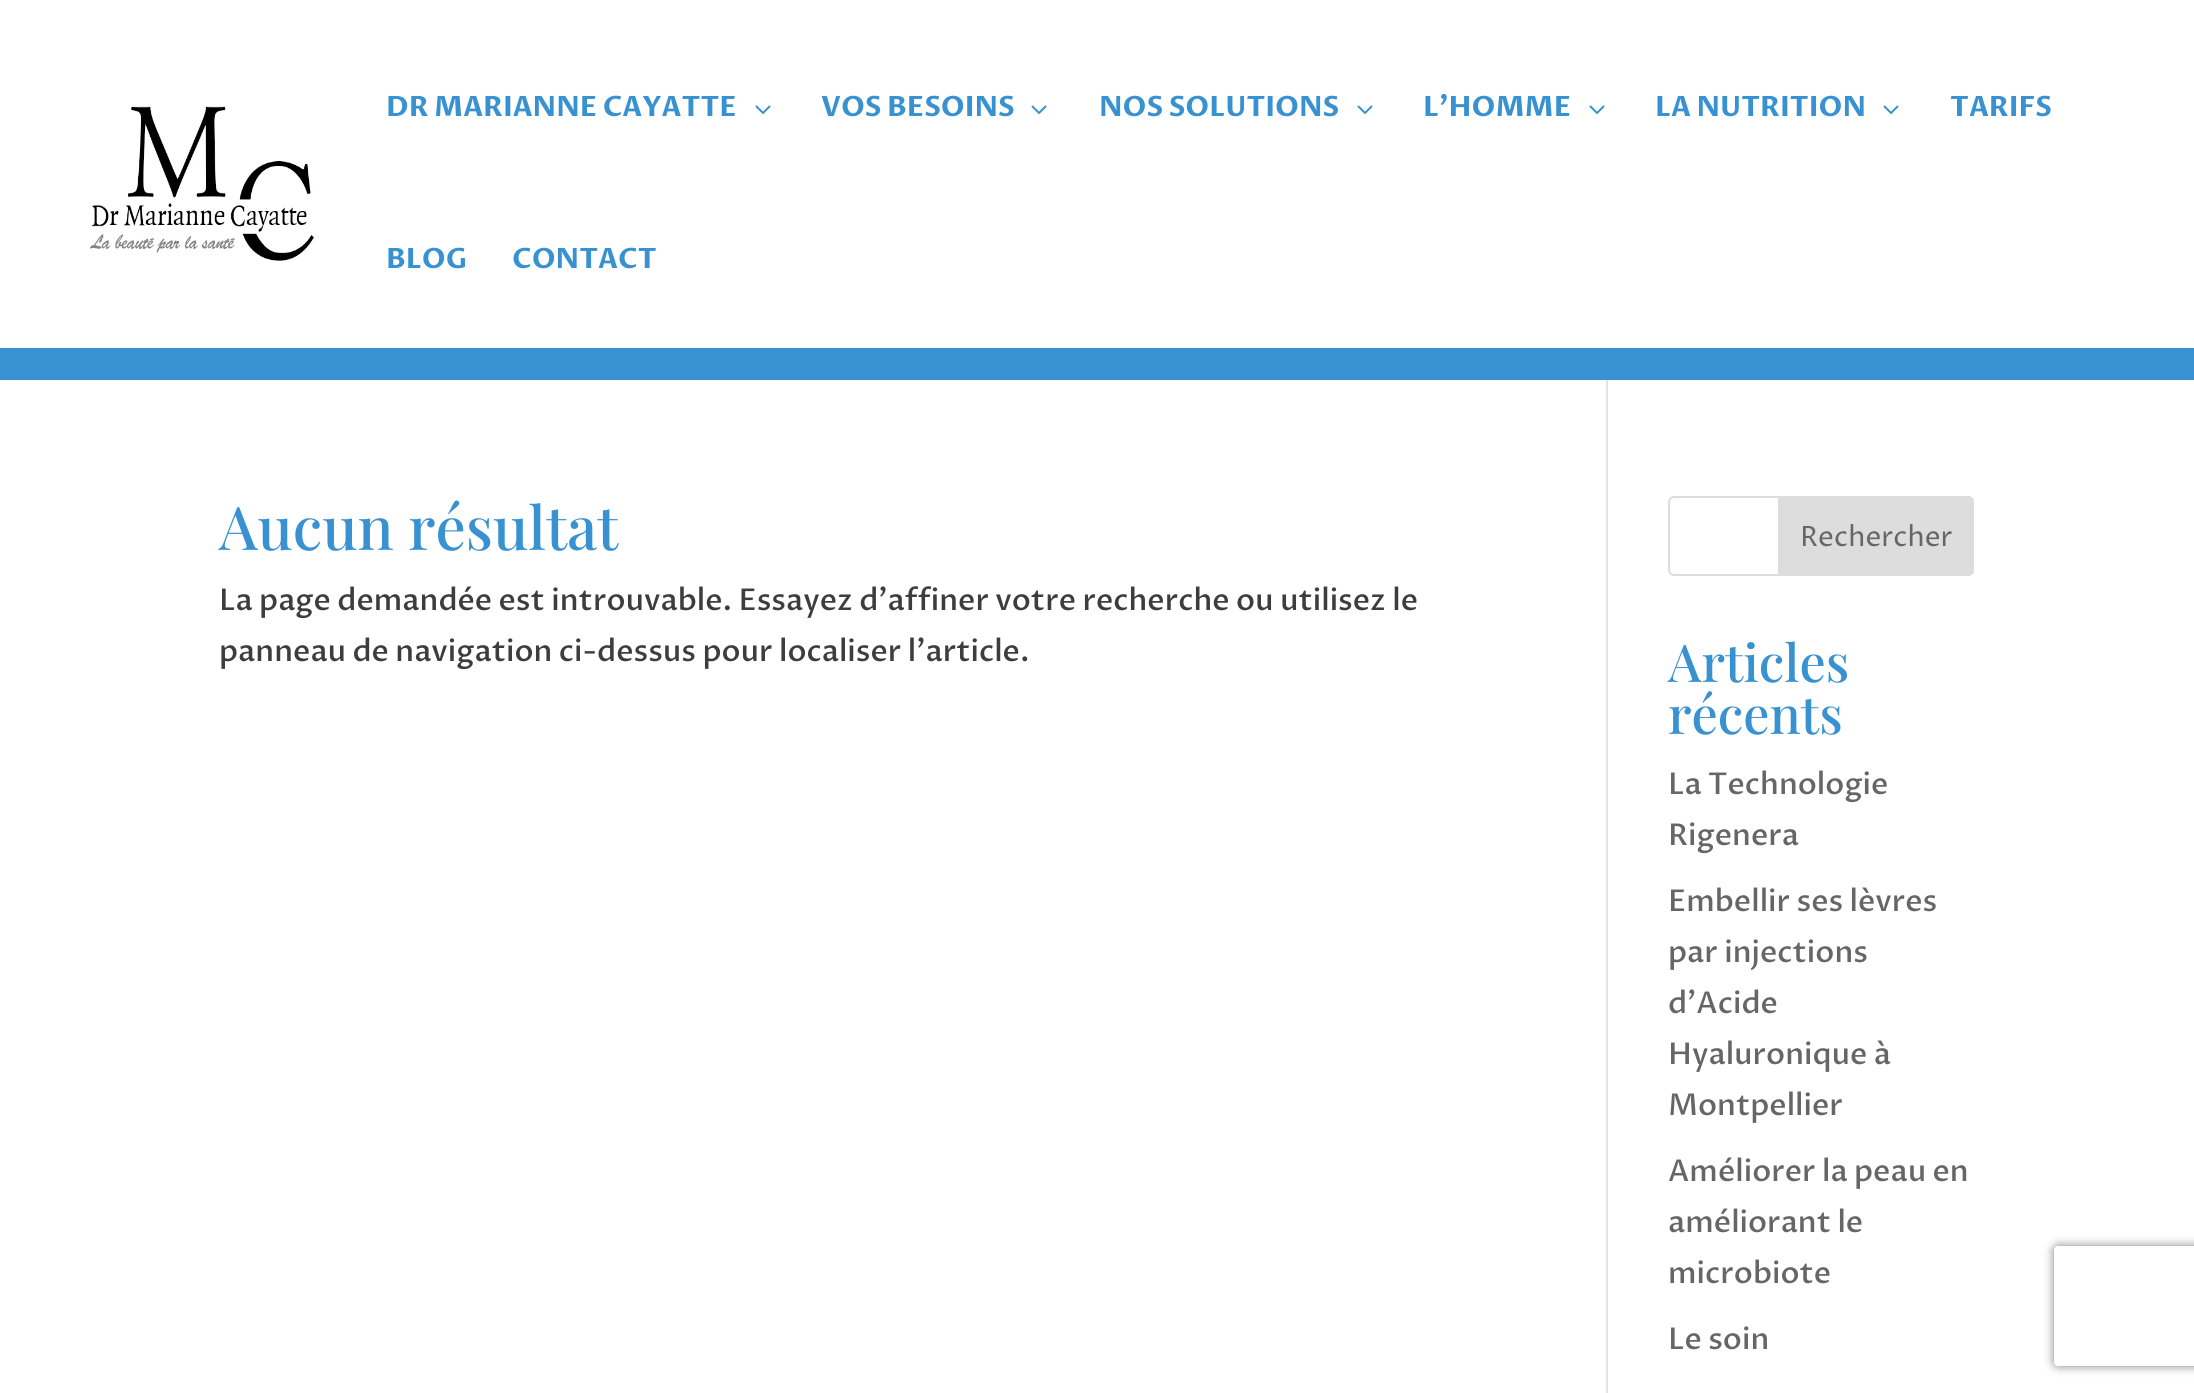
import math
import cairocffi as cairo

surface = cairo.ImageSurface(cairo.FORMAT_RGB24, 2194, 1393)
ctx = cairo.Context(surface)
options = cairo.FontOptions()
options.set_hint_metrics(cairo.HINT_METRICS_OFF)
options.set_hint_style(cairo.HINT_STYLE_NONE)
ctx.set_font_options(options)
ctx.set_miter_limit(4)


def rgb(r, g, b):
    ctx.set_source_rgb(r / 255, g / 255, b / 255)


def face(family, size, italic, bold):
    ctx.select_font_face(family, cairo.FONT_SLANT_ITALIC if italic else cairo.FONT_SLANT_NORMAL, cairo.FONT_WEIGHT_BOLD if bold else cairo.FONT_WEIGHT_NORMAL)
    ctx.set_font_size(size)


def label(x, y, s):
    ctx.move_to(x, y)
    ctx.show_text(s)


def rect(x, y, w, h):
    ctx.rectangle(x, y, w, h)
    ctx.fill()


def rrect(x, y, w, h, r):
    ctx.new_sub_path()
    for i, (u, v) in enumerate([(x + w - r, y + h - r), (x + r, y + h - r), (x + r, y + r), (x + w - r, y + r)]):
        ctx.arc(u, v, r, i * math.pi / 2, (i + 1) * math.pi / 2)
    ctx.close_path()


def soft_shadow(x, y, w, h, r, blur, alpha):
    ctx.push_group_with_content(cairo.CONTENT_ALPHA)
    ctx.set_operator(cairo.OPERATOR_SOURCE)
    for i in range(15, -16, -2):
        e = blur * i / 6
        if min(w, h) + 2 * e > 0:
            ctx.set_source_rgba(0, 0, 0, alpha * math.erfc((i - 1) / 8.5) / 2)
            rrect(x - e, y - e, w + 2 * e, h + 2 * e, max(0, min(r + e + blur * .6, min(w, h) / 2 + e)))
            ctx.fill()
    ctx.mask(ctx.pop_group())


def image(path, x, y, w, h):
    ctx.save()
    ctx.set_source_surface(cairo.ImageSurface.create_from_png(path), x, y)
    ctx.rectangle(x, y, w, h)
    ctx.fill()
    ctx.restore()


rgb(255, 255, 255)
ctx.paint()
image('image0.png', 90, 106, 224, 155)
face('Proza Libre', 28, 0, 1)
rgb(56, 145, 209)
label(386, 116, 'DR MARIANNE CAYATTE')
image('image1.png', 755, 105, 16, 9)
label(821, 116, 'VOS BESOINS')
image('image1.png', 1031, 105, 16, 9)
label(1099, 116, 'NOS SOLUTIONS')
image('image1.png', 1357, 105, 16, 9)
label(1423, 116, 'L’HOMME')
image('image1.png', 1589, 105, 16, 9)
label(1655, 116, 'LA NUTRITION')
image('image1.png', 1883, 105, 16, 9)
label(1950, 116, 'TARIFS')
label(386, 268, 'BLOG')
label(512, 268, 'CONTACT')
rect(0, 348, 2194, 32)
rgb(226, 226, 226)
rect(1606, 380, 2, 1013)
face('Playfair Display Medium', 60, 0, 0)
rgb(56, 145, 209)
label(219, 550, 'Aucun résultat')
face('Proza Libre Medium', 30, 0, 0)
rgb(61, 61, 61)
label(219, 610, 'La page demandée est introuvable. Essayez d\'affiner votre recherche ou utilisez le')
label(219, 661, 'panneau de navigation ci-dessus pour localiser l\'article.')
rrect(1669, 497, 304, 78, 5)
rgb(221, 221, 221)
ctx.stroke()
ctx.new_path()
ctx.move_to(1779, 497)
ctx.line_to(1968, 497)
ctx.curve_to(1971, 497, 1973, 499, 1973, 502)
ctx.line_to(1973, 570)
ctx.curve_to(1973, 573, 1971, 575, 1968, 575)
ctx.line_to(1779, 575)
ctx.close_path()
ctx.fill_preserve()
ctx.stroke()
face('Proza Libre', 28, 0, 0)
rgb(102, 102, 102)
label(1800, 546, 'Rechercher')
face('Playfair Display Medium', 52, 0, 0)
rgb(56, 145, 209)
label(1668, 682, 'Articles')
label(1668, 734, 'récents')
face('Proza Libre Medium', 30, 0, 0)
rgb(102, 102, 102)
label(1668, 794, 'La Technologie')
label(1668, 845, 'Rigenera')
label(1668, 911, 'Embellir ses lèvres')
label(1668, 962, 'par injections')
label(1668, 1013, 'd’Acide')
label(1668, 1064, 'Hyaluronique à')
label(1668, 1115, 'Montpellier')
label(1668, 1181, 'Améliorer la peau en')
label(1668, 1232, 'améliorant le')
label(1668, 1283, 'microbiote')
label(1668, 1349, 'Le soin')
ctx.save()
ctx.set_fill_rule(cairo.FILL_RULE_EVEN_ODD)
ctx.new_path()
ctx.move_to(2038, 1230)
ctx.line_to(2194, 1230)
ctx.line_to(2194, 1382)
ctx.line_to(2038, 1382)
ctx.close_path()
ctx.move_to(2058, 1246)
ctx.line_to(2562, 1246)
ctx.curve_to(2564, 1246, 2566, 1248, 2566, 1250)
ctx.line_to(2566, 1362)
ctx.curve_to(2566, 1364, 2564, 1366, 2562, 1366)
ctx.line_to(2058, 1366)
ctx.curve_to(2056, 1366, 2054, 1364, 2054, 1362)
ctx.line_to(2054, 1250)
ctx.curve_to(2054, 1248, 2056, 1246, 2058, 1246)
ctx.close_path()
ctx.clip()
rgb(128, 128, 128)
soft_shadow(2054, 1246, 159, 120, 4, 5, 1)
ctx.restore()
surface.write_to_png('render.png')
